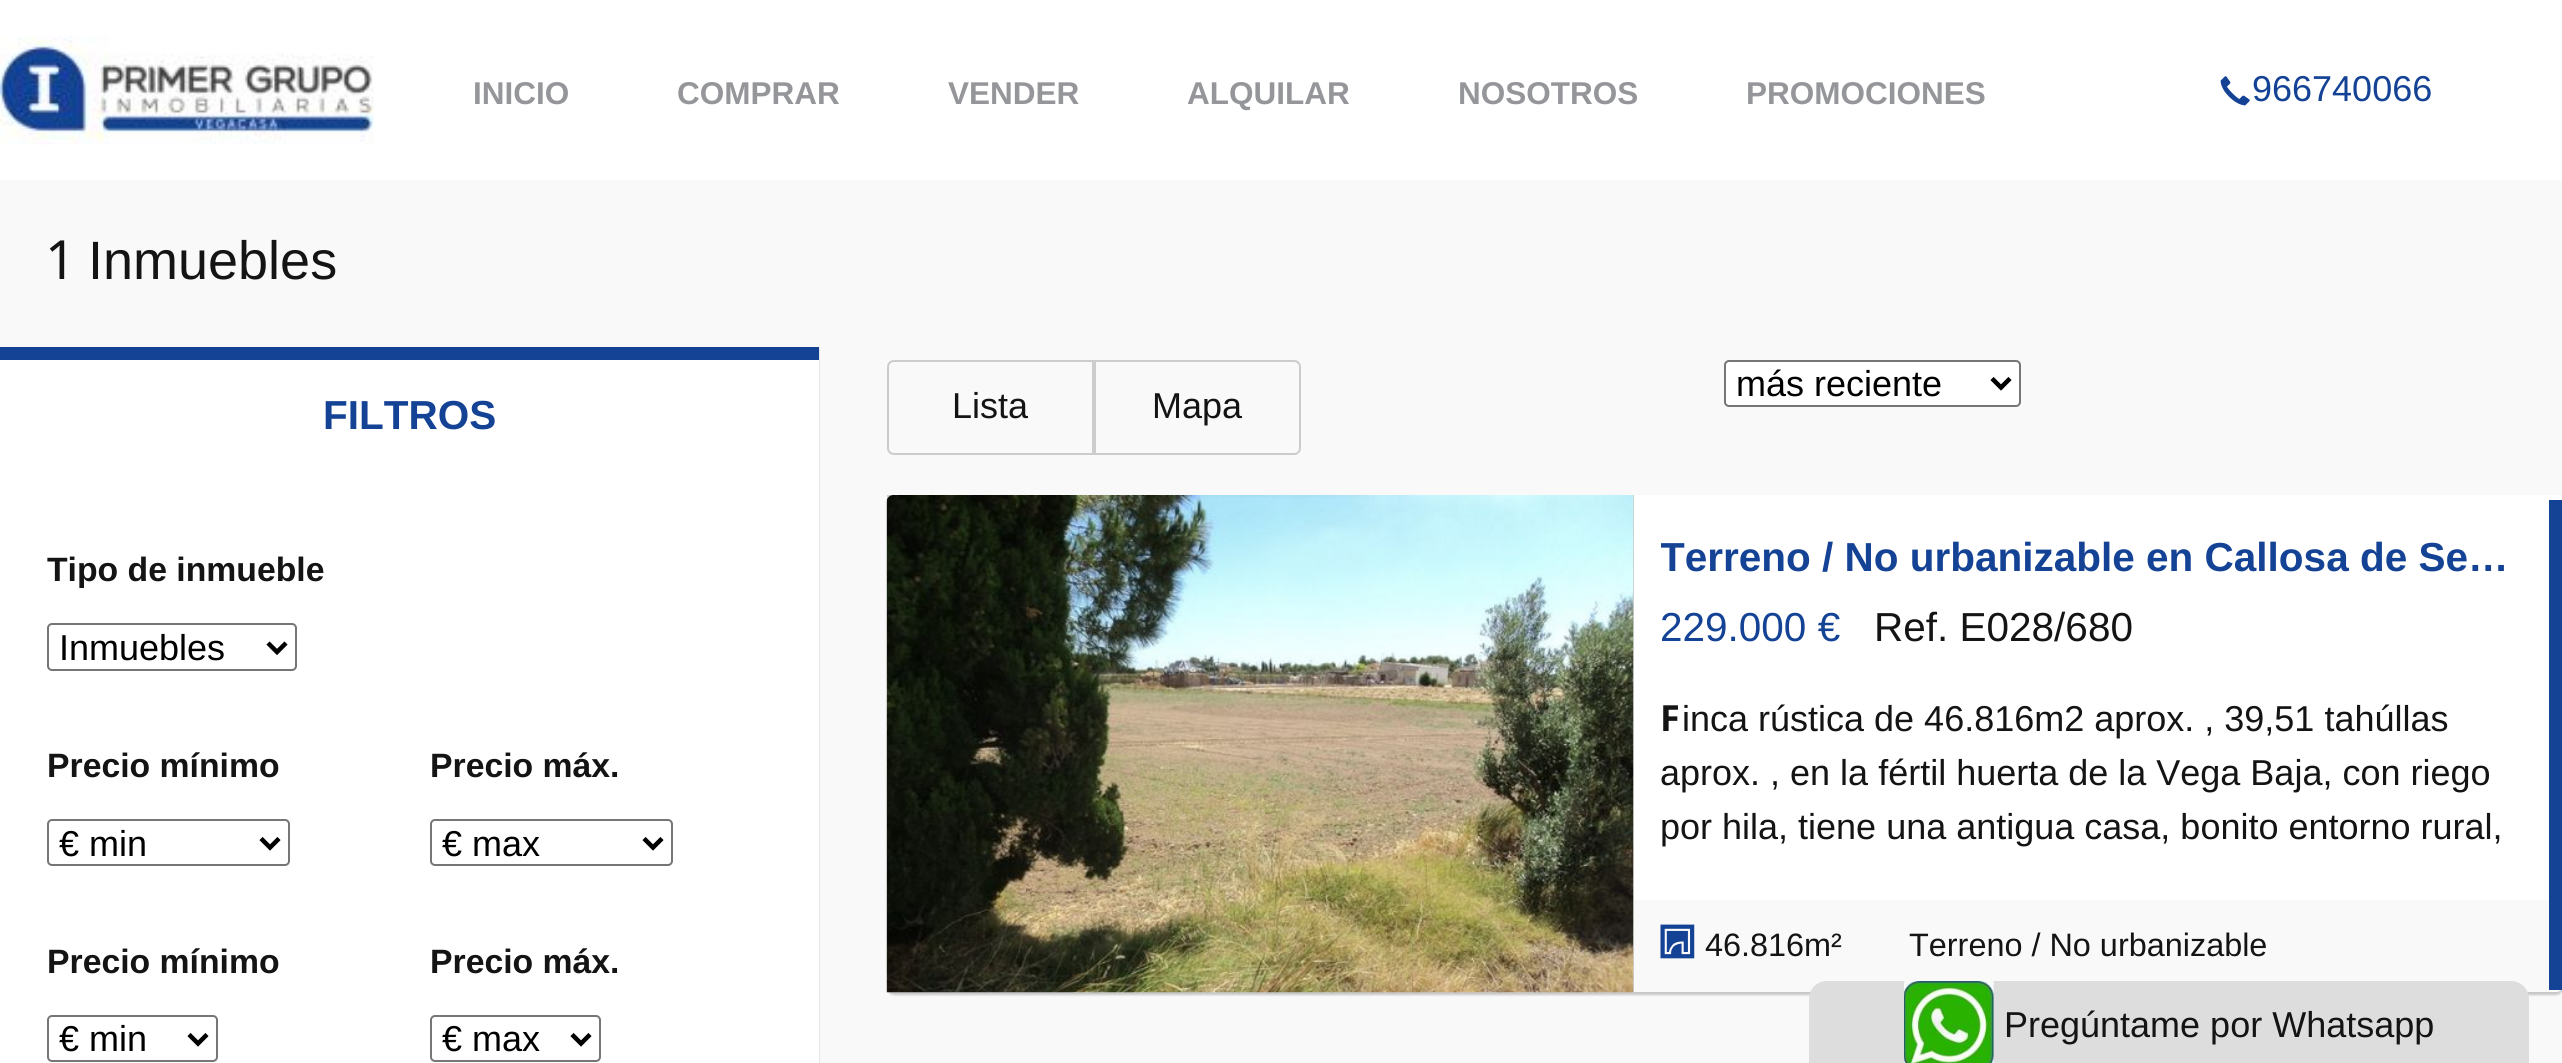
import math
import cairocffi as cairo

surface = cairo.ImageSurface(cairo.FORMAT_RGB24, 2562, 1063)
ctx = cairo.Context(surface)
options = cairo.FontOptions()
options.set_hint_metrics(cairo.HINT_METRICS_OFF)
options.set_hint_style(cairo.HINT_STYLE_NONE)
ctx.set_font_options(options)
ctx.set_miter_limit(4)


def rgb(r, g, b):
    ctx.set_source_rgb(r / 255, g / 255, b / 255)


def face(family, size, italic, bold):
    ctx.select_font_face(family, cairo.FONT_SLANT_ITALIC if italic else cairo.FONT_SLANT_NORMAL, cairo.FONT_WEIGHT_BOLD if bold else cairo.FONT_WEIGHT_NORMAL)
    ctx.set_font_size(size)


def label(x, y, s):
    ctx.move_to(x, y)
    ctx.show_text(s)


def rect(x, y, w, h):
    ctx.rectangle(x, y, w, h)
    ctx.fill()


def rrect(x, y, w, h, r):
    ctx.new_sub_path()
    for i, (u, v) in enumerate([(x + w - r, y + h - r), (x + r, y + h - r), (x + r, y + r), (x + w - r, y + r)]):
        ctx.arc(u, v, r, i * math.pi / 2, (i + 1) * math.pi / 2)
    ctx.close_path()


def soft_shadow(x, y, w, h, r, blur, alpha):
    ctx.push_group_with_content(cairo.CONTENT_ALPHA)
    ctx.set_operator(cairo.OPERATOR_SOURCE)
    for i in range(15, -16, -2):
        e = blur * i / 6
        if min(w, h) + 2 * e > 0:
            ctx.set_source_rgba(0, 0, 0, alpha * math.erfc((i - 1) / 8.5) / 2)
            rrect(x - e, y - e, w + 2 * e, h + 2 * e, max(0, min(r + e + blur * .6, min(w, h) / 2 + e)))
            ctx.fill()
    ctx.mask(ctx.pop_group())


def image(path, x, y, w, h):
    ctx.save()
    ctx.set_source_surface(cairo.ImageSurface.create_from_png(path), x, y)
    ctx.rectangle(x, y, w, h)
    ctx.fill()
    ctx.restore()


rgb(249, 249, 249)
ctx.paint()
rgb(255, 255, 255)
rect(0, 0, 2562, 180)
image('image0.png', 0, 36, 374, 109)
face('Liberation Sans', 31.5, 0, 1)
rgb(149, 150, 154)
label(473, 104, 'INICIO')
label(677, 104, 'COMPRAR')
label(948, 104, 'VENDER')
label(1187, 104, 'ALQUILAR')
label(1458, 104, 'NOSOTROS')
label(1746, 104, 'PROMOCIONES')
image('image1.png', 2220, 76, 30, 30)
face('Liberation Sans', 36, 0, 0)
rgb(20, 66, 149)
label(2252, 101, '966740066')
face('Noto Sans', 54, 0, 0)
rgb(20, 20, 20)
label(45, 279, '1')
face('Liberation Sans', 54, 0, 0)
label(88, 279, 'Inmuebles')
rgb(0, 0, 0)
soft_shadow(0, 349, 819, 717, 0, 1, 0.2)
rgb(255, 255, 255)
rect(0, 360, 819, 703)
rgb(20, 66, 149)
rect(0, 347, 819, 13)
face('Liberation Sans', 40.5, 0, 1)
label(323, 429, 'FILTROS')
face('Liberation Sans', 33.75, 0, 1)
rgb(20, 20, 20)
label(47, 581, 'Tipo de inmueble')
rrect(48, 624, 248, 46, 4)
rgb(118, 118, 118)
ctx.stroke()
ctx.new_path()
ctx.move_to(268, 643)
ctx.line_to(277, 652)
ctx.line_to(286, 643)
rgb(0, 0, 0)
ctx.set_line_width(4.5)
ctx.stroke()
face('Liberation Sans', 36, 0, 0)
label(59, 660, 'Inmuebles')
face('Liberation Sans', 33.75, 0, 1)
rgb(20, 20, 20)
label(47, 777, 'Precio mínimo')
rrect(48, 820, 241, 45, 4)
rgb(118, 118, 118)
ctx.set_line_width(2)
ctx.stroke()
ctx.new_path()
ctx.move_to(261, 838.5)
ctx.line_to(270, 847.5)
ctx.line_to(279, 838.5)
rgb(0, 0, 0)
ctx.set_line_width(4.5)
ctx.stroke()
face('Liberation Sans', 36, 0, 0)
label(59, 856, '€ min')
face('Liberation Sans', 33.75, 0, 1)
rgb(20, 20, 20)
label(430, 777, 'Precio máx.')
rrect(431, 820, 241, 45, 4)
rgb(118, 118, 118)
ctx.set_line_width(2)
ctx.stroke()
ctx.new_path()
ctx.move_to(644, 838.5)
ctx.line_to(653, 847.5)
ctx.line_to(662, 838.5)
rgb(0, 0, 0)
ctx.set_line_width(4.5)
ctx.stroke()
face('Liberation Sans', 36, 0, 0)
label(442, 856, '€ max')
face('Liberation Sans', 33.75, 0, 1)
rgb(20, 20, 20)
label(47, 973, 'Precio mínimo')
rrect(48, 1016, 169, 45, 4)
rgb(118, 118, 118)
ctx.set_line_width(2)
ctx.stroke()
ctx.new_path()
ctx.move_to(189, 1034.5)
ctx.line_to(198, 1043.5)
ctx.line_to(207, 1034.5)
rgb(0, 0, 0)
ctx.set_line_width(4.5)
ctx.stroke()
face('Liberation Sans', 36, 0, 0)
label(59, 1051, '€ min')
face('Liberation Sans', 33.75, 0, 1)
rgb(20, 20, 20)
label(430, 973, 'Precio máx.')
rrect(431, 1016, 169, 45, 4)
rgb(118, 118, 118)
ctx.set_line_width(2)
ctx.stroke()
ctx.new_path()
ctx.move_to(572, 1034.5)
ctx.line_to(581, 1043.5)
ctx.line_to(590, 1034.5)
rgb(0, 0, 0)
ctx.set_line_width(4.5)
ctx.stroke()
face('Liberation Sans', 36, 0, 0)
label(442, 1051, '€ max')
rgb(255, 255, 255)
rrect(1725, 361, 295, 45, 4)
ctx.fill_preserve()
rgb(118, 118, 118)
ctx.set_line_width(2)
ctx.stroke()
ctx.new_path()
ctx.move_to(1992, 378.5)
ctx.line_to(2001, 387.5)
ctx.line_to(2010, 378.5)
rgb(0, 0, 0)
ctx.set_line_width(4.5)
ctx.stroke()
label(1736, 396, 'más reciente')
ctx.new_path()
ctx.move_to(894, 361)
ctx.line_to(1093, 361)
ctx.line_to(1093, 454)
ctx.line_to(894, 454)
ctx.curve_to(890.5, 454, 888, 451.5, 888, 448)
ctx.line_to(888, 367)
ctx.curve_to(888, 363.5, 890.5, 361, 894, 361)
ctx.close_path()
rgb(204, 204, 204)
ctx.set_line_width(2)
ctx.stroke()
rgb(20, 20, 20)
label(952, 418, 'Lista')
ctx.new_path()
ctx.move_to(1095, 361)
ctx.line_to(1294, 361)
ctx.curve_to(1297.5, 361, 1300, 363.5, 1300, 367)
ctx.line_to(1300, 448)
ctx.curve_to(1300, 451.5, 1297.5, 454, 1294, 454)
ctx.line_to(1095, 454)
ctx.close_path()
rgb(204, 204, 204)
ctx.stroke()
rgb(20, 20, 20)
label(1152, 418, 'Mapa')
rgb(0, 0, 0)
soft_shadow(887, 497, 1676, 498, 7, 1, 0.2)
rgb(255, 255, 255)
rrect(887, 495, 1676, 497, 7)
ctx.fill()
rgb(20, 66, 149)
rect(2549, 500, 13, 490)
rgb(204, 204, 204)
rect(887, 495, 747, 497)
image('image2.png', 886, 495, 748, 498)
ctx.save()
ctx.rectangle(1661, 522, 861, 74)
ctx.clip()
face('Liberation Sans', 40.5, 0, 1)
rgb(20, 66, 149)
label(1660, 571, 'Terreno / No urbanizable en Callosa de Se…')
ctx.restore()
face('Liberation Sans', 40.5, 0, 0)
rgb(20, 66, 149)
label(1660, 641, '229.000 €')
rgb(20, 20, 20)
label(1874, 641, 'Ref. E028/680')
face('Noto Sans', 36, 0, 1)
label(1660, 731, 'F')
face('Liberation Sans', 36, 0, 0)
label(1682, 731, 'inca rústica de 46.816m2 aprox. , 39,51 tahúllas')
label(1660, 785, 'aprox. , en la fértil huerta de la Vega Baja, con riego')
label(1660, 839, 'por hila, tiene una antigua casa, bonito entorno rural,')
rgb(249, 249, 249)
rect(1634, 900, 915, 92)
image('image3.png', 1660, 924, 35, 35)
face('Liberation Sans', 32.4, 0, 0)
rgb(20, 20, 20)
label(1705, 956, '46.816m²')
label(1909, 956, 'Terreno / No urbanizable')
rgb(221, 221, 221)
ctx.new_path()
ctx.move_to(1827, 981)
ctx.line_to(2511, 981)
ctx.curve_to(2521, 981, 2529, 989, 2529, 999)
ctx.line_to(2529, 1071)
ctx.line_to(1809, 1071)
ctx.line_to(1809, 999)
ctx.curve_to(1809, 989, 1817, 981, 1827, 981)
ctx.close_path()
ctx.fill()
image('image4.png', 1904, 981, 90, 82)
face('Liberation Sans', 36, 0, 0)
rgb(20, 20, 20)
label(2004, 1037, 'Pregúntame por Whatsapp')
surface.write_to_png('render.png')
